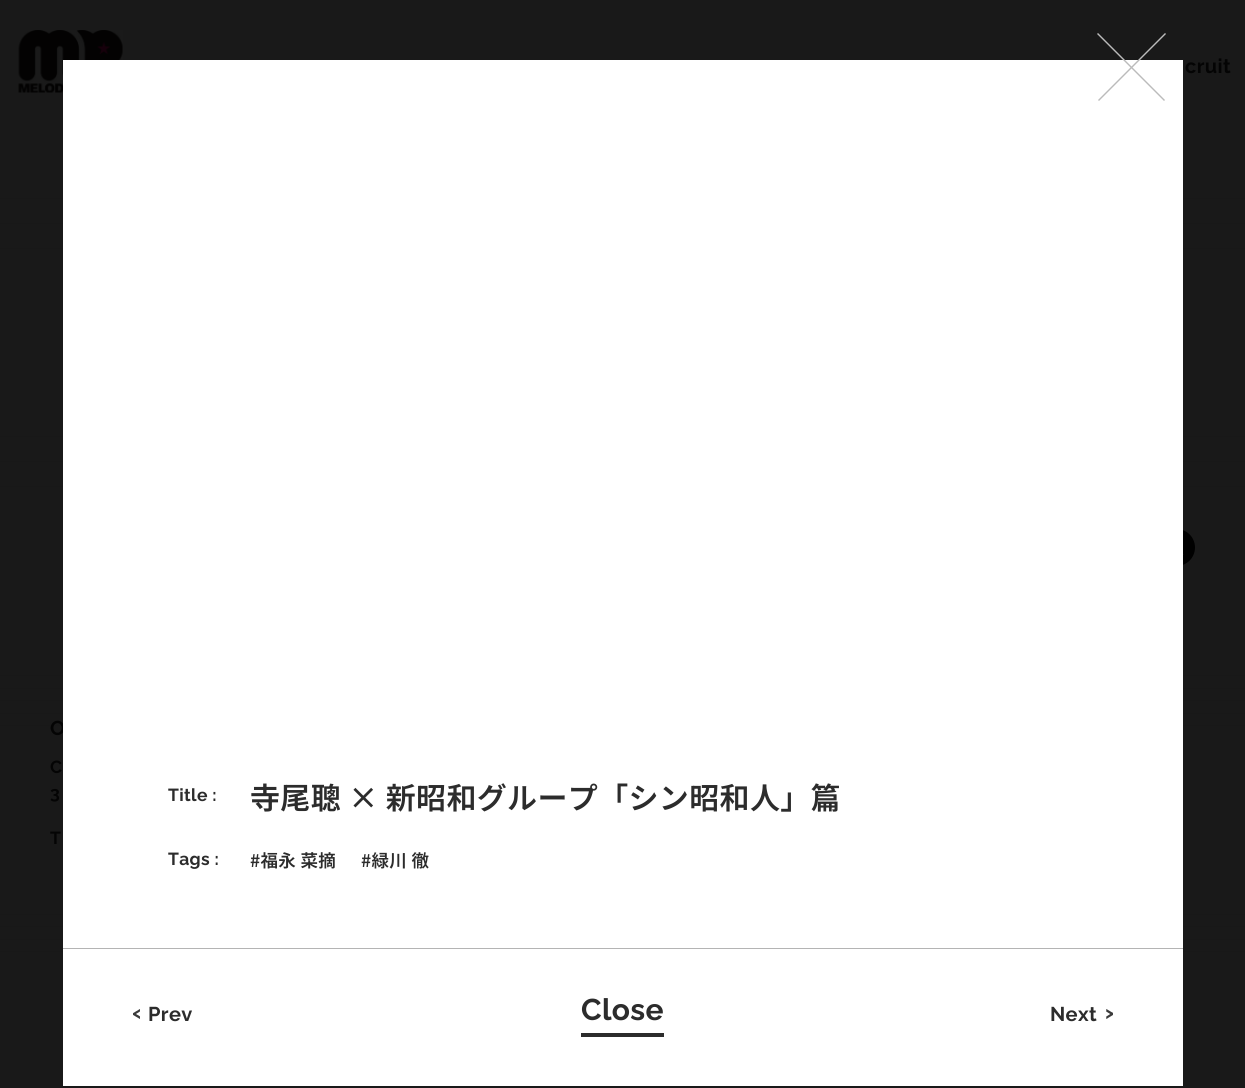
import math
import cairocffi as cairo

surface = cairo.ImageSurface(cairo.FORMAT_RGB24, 1245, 1088)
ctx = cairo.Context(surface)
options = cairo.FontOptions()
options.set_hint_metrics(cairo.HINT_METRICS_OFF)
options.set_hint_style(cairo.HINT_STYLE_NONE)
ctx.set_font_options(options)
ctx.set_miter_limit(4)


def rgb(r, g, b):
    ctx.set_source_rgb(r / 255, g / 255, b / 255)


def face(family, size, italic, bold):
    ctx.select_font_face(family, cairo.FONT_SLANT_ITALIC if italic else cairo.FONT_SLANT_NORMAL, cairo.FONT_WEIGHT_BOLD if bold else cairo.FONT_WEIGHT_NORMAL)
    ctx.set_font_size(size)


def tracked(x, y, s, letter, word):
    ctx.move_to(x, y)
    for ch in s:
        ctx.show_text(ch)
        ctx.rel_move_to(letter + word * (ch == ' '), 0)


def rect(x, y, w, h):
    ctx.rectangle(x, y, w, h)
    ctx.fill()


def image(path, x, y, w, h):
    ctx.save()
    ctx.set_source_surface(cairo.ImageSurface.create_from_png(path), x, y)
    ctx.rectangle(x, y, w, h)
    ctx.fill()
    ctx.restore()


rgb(25, 25, 25)
ctx.paint()
image('image0.png', 18, 30, 105, 63)
face('Raleway Thin', 20, 0, 0)
rgb(4, 4, 4)
tracked(1185, 73, 'cruit', 0.35, 0)
image('image1.png', 0, 198, 1245, 767)
rgb(0, 0, 0)
ctx.arc(1176.5, 547.5, 18.5, 0, 2 * math.pi)
ctx.fill()
image('image2.png', 1183, 554, 1, 1)
rgb(4, 4, 4)
tracked(50, 735, 'O', 0.35, 0)
face('Raleway Thin', 17.5, 0, 0)
tracked(50, 773, 'C', 0.35, 0)
tracked(50, 799, '3', 0.35, 0)
tracked(50, 844, 'T', 0.35, 0)
rgb(255, 255, 255)
rect(63, 60, 1120, 1026)
rgb(187, 187, 187)
ctx.new_path()
ctx.move_to(1098, 33)
ctx.line_to(1165, 100)
ctx.line_to(1164, 101)
ctx.line_to(1097, 34)
ctx.close_path()
ctx.fill()
ctx.new_path()
ctx.move_to(1165, 33)
ctx.line_to(1166, 34)
ctx.line_to(1099, 101)
ctx.line_to(1098, 100)
ctx.close_path()
ctx.fill()
rgb(44, 44, 44)
tracked(168, 801, 'Title :', 0.35, 0)
face('Noto Sans JP SemiBold', 30, 0, 0)
tracked(250, 809, '寺尾聰 × 新昭和グループ「シン昭和人」篇', 0.35, 0)
face('Raleway Thin', 17.5, 0, 0)
tracked(168, 865, 'Tags :', 0.35, 0)
face('Noto Sans JP SemiBold', 17.5, 0, 0)
tracked(250, 867, '#福永 菜摘', 0.35, 0)
tracked(361, 867, '#緑川 徹', 0.35, 0)
rgb(180, 180, 180)
rect(63, 948, 1120, 1)
image('image3.png', 133, 1009, 7, 10)
face('Raleway Thin', 20, 0, 0)
rgb(44, 44, 44)
tracked(148, 1021, 'Prev', 0.35, 0)
face('Raleway Thin', 30, 0, 0)
tracked(581, 1020, 'Close', 0.35, 0)
rect(581, 1033, 83, 4)
face('Raleway Thin', 20, 0, 0)
tracked(1050, 1021, 'Next', 0.35, 0)
image('image4.png', 1106, 1009, 7, 10)
surface.write_to_png('render.png')
